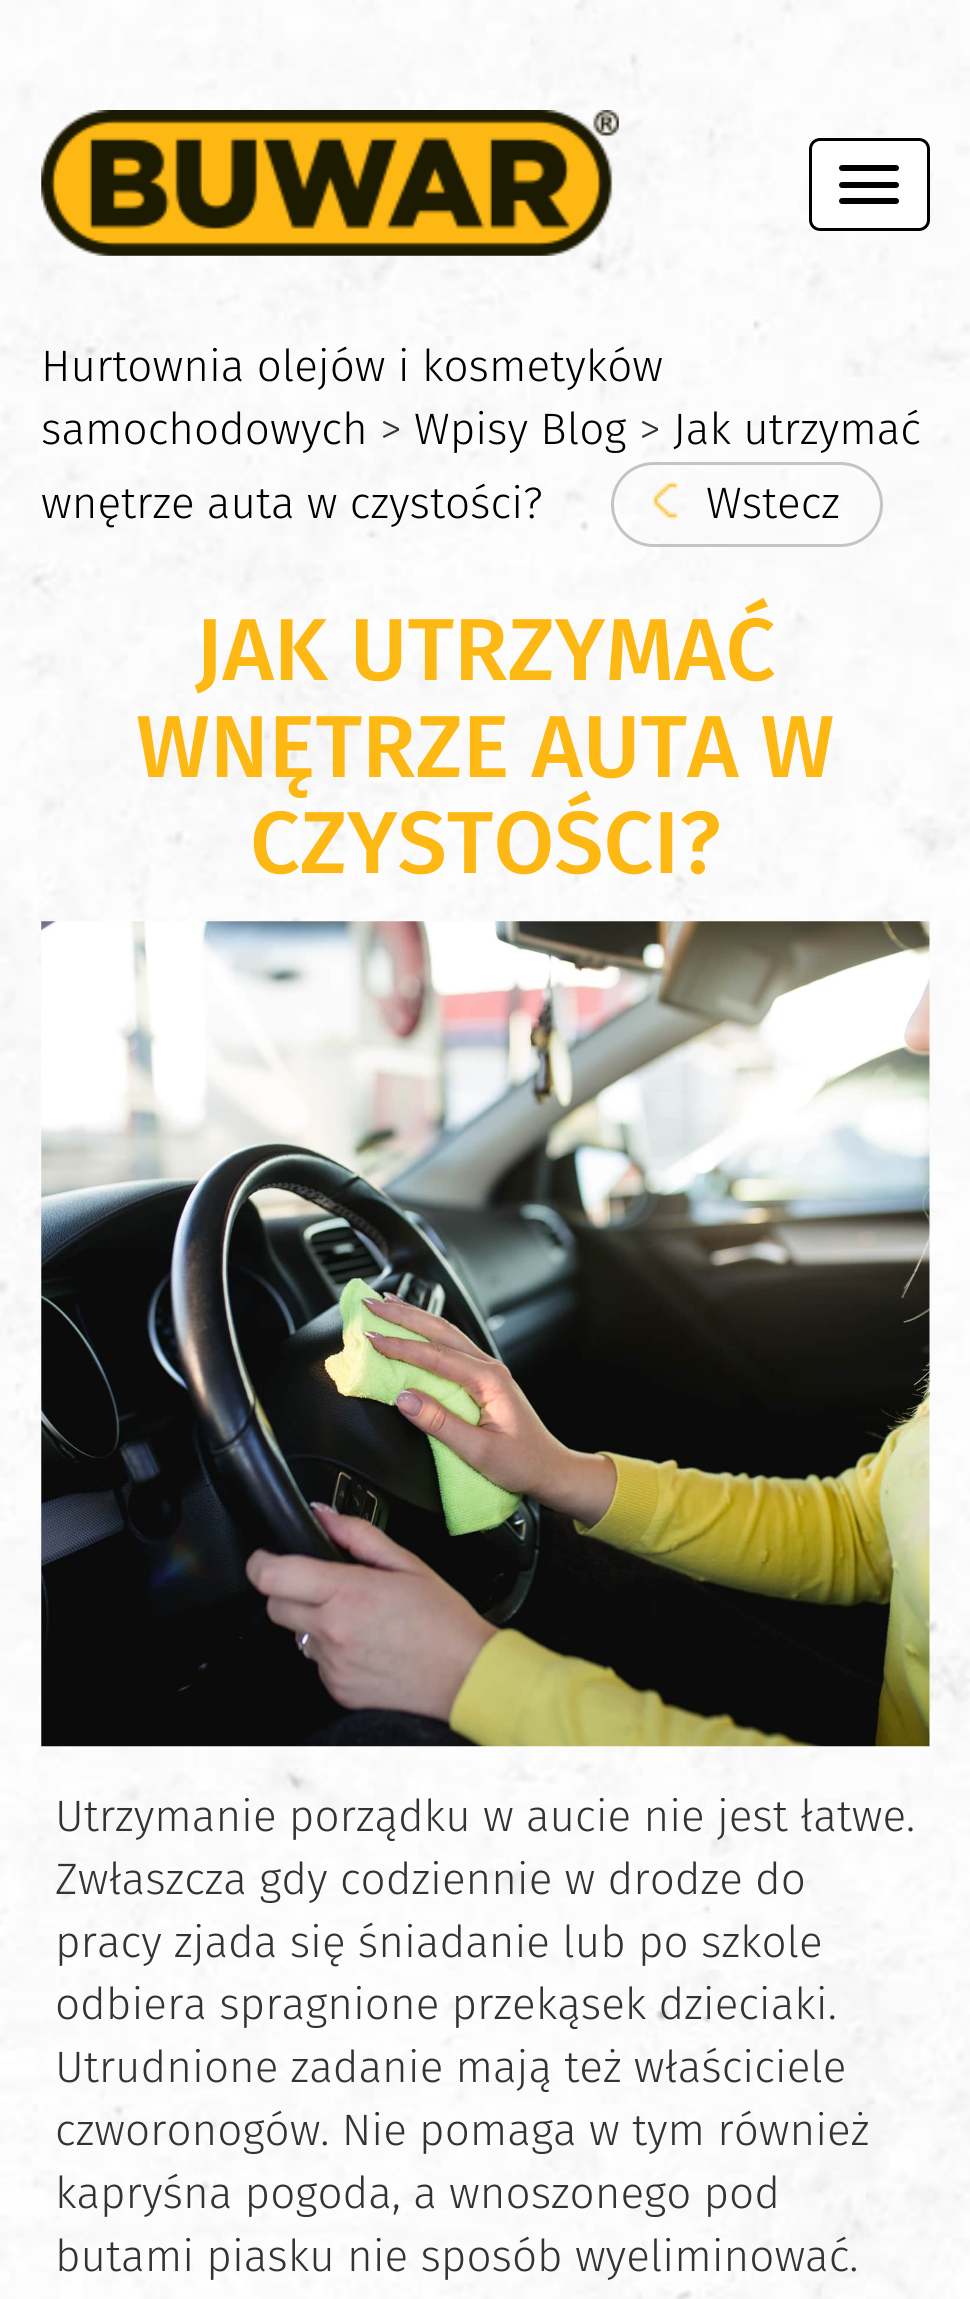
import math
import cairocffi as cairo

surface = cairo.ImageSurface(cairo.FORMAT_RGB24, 970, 2299)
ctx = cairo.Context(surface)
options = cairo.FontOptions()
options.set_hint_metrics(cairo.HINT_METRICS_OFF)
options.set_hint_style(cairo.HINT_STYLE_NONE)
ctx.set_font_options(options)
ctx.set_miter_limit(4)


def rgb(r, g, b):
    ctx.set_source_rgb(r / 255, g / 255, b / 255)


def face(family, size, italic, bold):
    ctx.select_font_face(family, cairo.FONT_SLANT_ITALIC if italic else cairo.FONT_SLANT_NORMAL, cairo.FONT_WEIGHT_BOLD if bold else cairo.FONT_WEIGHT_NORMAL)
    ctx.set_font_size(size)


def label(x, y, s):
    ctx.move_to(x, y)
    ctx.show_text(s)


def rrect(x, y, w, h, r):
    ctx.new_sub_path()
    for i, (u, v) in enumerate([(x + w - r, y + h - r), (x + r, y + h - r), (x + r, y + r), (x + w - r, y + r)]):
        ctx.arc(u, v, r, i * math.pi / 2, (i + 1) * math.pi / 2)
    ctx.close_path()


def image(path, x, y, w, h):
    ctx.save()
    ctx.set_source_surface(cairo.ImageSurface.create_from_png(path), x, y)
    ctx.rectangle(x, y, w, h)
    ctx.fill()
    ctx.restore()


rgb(255, 255, 255)
ctx.paint()
image('image0.png', 0, 0, 970, 2299)
image('image1.png', 41, 110, 578, 146)
rgb(255, 255, 255)
rrect(810.5, 139.5, 118, 90, 9.5)
ctx.fill_preserve()
rgb(0, 0, 0)
ctx.set_line_width(3)
ctx.stroke()
rrect(839, 165, 60, 6, 3)
ctx.fill()
rrect(839, 182, 60, 6, 3)
ctx.fill()
rrect(839, 198, 60, 6, 3)
ctx.fill()
face('Fira Sans Light', 44, 0, 0)
label(41, 381, 'Hurtownia olejów i kosmetyków')
label(41, 444, 'samochodowych')
rgb(51, 51, 51)
label(380, 444, '>')
rgb(0, 0, 0)
label(414, 444, 'Wpisy Blog')
rgb(51, 51, 51)
label(639, 444, '>')
rgb(0, 0, 0)
label(673, 444, 'Jak utrzymać')
label(41, 518, 'wnętrze auta w czystości?')
rrect(612.5, 463.5, 269, 82, 41)
rgb(196, 196, 196)
ctx.stroke()
image('image2.png', 652, 481, 27, 39)
rgb(0, 0, 0)
label(706, 518, 'Wstecz')
face('Fira Sans Medium', 88, 0, 0)
rgb(253, 184, 19)
label(195, 680, 'JAK UTRZYMAĆ')
label(136, 777, 'WNĘTRZE AUTA W')
label(250, 873, 'CZYSTOŚCI?')
image('image3.png', 41, 921, 889, 826)
face('Fira Sans Light', 44, 0, 0)
rgb(51, 51, 51)
label(55, 1831, 'Utrzymanie porządku w aucie nie jest łatwe.')
label(55, 1894, 'Zwłaszcza gdy codziennie w drodze do')
label(55, 1957, 'pracy zjada się śniadanie lub po szkole')
label(55, 2019, 'odbiera spragnione przekąsek dzieciaki.')
label(55, 2082, 'Utrudnione zadanie mają też właściciele')
label(55, 2145, 'czworonogów. Nie pomaga w tym również')
label(55, 2208, 'kapryśna pogoda, a wnoszonego pod')
label(55, 2271, 'butami piasku nie sposób wyeliminować.')
surface.write_to_png('render.png')
